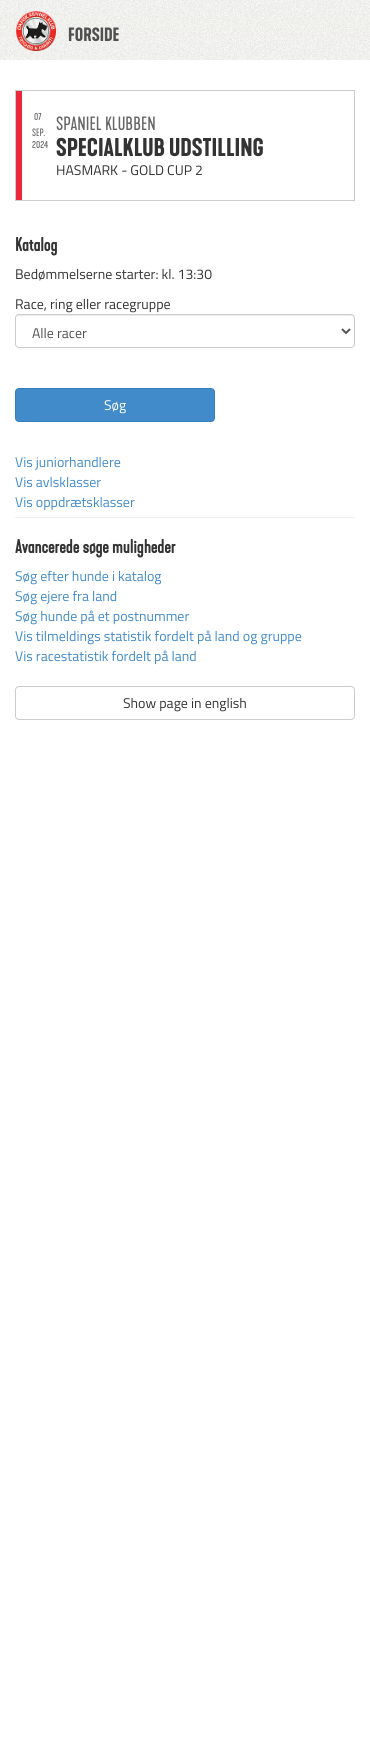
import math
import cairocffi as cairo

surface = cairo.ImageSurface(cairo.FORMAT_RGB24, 370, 1755)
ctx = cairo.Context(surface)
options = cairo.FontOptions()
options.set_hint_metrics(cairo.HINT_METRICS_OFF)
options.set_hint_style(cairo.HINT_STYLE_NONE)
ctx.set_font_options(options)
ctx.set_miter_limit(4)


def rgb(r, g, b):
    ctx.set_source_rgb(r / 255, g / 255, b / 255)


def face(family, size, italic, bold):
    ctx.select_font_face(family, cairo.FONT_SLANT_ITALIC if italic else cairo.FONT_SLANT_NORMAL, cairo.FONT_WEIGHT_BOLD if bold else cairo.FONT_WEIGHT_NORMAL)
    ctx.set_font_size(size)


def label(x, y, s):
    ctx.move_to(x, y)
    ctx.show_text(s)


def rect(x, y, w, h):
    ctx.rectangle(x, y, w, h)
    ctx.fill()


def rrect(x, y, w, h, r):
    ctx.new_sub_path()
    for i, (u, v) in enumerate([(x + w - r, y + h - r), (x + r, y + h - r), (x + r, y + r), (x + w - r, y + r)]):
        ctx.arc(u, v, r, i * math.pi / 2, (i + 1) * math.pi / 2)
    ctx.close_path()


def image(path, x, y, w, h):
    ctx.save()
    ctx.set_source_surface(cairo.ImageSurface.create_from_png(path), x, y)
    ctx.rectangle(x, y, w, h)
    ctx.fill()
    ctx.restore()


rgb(255, 255, 255)
ctx.paint()
image('image0.png', 0, 0, 370, 60)
image('image1.png', 16, 11, 40, 40)
face('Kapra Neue', 18, 0, 1)
rgb(80, 80, 80)
label(68, 41, 'FORSIDE')
ctx.rectangle(15.5, 90.5, 339, 110)
rgb(204, 204, 204)
ctx.set_line_width(1)
ctx.stroke()
rgb(233, 41, 57)
rect(16, 91, 6, 109)
face('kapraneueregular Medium', 10, 0, 0)
rgb(102, 102, 102)
label(34, 120, '07')
label(32, 136, 'SEP.')
label(32, 148, '2024')
face('kapraneueregular Medium', 18, 0, 0)
label(56, 130, 'SPANIEL KLUBBEN')
face('Kapra Neue', 24, 0, 1)
rgb(51, 51, 51)
label(56, 156, 'SPECIALKLUB UDSTILLING')
face('Titillium Web', 14, 0, 0)
label(56, 175, 'HASMARK - GOLD CUP 2')
face('kapraneueregular', 18, 0, 1)
label(15, 251, 'Katalog')
face('Titillium Web', 14, 0, 0)
label(15, 279, 'Bedømmelserne starter: kl. 13:30')
label(15, 309, 'Race, ring eller racegruppe')
rgb(236, 236, 236)
ctx.new_path()
ctx.move_to(19, 316)
ctx.line_to(351, 316)
ctx.curve_to(353, 316, 354, 317, 354, 319)
ctx.curve_to(354, 317, 353, 315, 351, 315)
ctx.line_to(19, 315)
ctx.curve_to(17, 315, 16, 317, 16, 319)
ctx.curve_to(16, 317, 17, 316, 19, 316)
ctx.close_path()
ctx.fill()
rrect(15.5, 314.5, 339, 33, 3.5)
rgb(204, 204, 204)
ctx.stroke()
ctx.new_path()
ctx.move_to(342, 329)
ctx.line_to(346, 333)
ctx.line_to(350, 329)
rgb(85, 85, 85)
ctx.set_line_width(2)
ctx.stroke()
rgb(80, 80, 80)
label(32, 338, 'Alle racer')
rgb(66, 139, 202)
rrect(15.5, 388.5, 199, 33, 3.5)
ctx.fill_preserve()
rgb(53, 126, 189)
ctx.set_line_width(1)
ctx.stroke()
rgb(255, 255, 255)
label(104, 410, 'Søg')
rgb(66, 139, 202)
label(15, 467, 'Vis juniorhandlere')
label(15, 487, 'Vis avlsklasser')
label(15, 507, 'Vis oppdrætsklasser')
rgb(238, 238, 238)
rect(15, 517, 340, 1)
face('kapraneueregular', 18, 0, 1)
rgb(51, 51, 51)
label(15, 553, 'Avancerede søge muligheder')
face('Titillium Web', 14, 0, 0)
rgb(66, 139, 202)
label(15, 581, 'Søg efter hunde i katalog')
label(15, 601, 'Søg ejere fra land')
label(15, 621, 'Søg hunde på et postnummer')
label(15, 641, 'Vis tilmeldings statistik fordelt på land og gruppe')
label(15, 661, 'Vis racestatistik fordelt på land')
rrect(15.5, 686.5, 339, 33, 3.5)
rgb(204, 204, 204)
ctx.stroke()
rgb(51, 51, 51)
label(123, 708, 'Show page in english')
surface.write_to_png('render.png')
